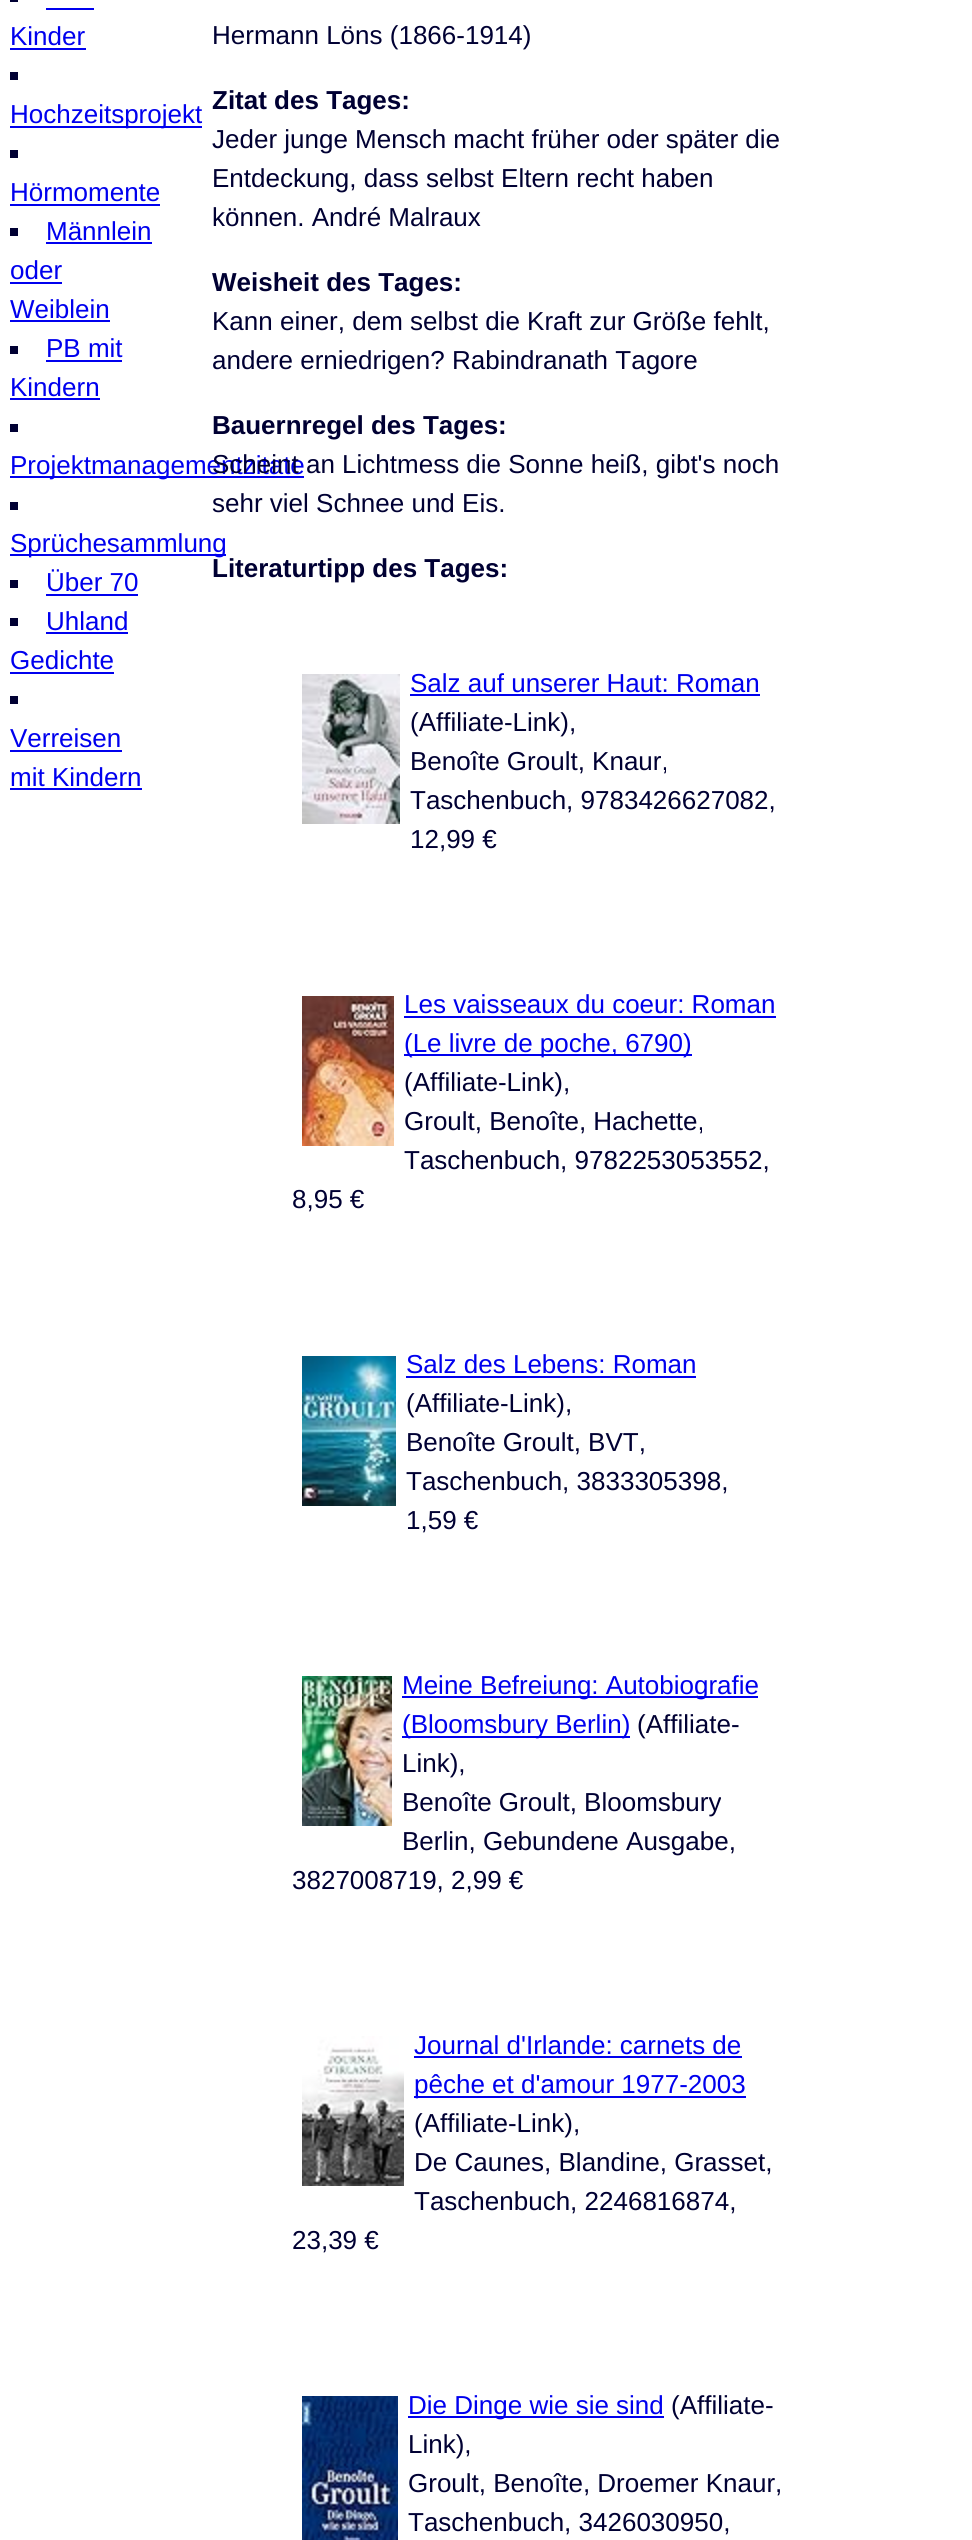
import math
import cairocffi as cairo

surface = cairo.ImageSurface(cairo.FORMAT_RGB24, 972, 2540)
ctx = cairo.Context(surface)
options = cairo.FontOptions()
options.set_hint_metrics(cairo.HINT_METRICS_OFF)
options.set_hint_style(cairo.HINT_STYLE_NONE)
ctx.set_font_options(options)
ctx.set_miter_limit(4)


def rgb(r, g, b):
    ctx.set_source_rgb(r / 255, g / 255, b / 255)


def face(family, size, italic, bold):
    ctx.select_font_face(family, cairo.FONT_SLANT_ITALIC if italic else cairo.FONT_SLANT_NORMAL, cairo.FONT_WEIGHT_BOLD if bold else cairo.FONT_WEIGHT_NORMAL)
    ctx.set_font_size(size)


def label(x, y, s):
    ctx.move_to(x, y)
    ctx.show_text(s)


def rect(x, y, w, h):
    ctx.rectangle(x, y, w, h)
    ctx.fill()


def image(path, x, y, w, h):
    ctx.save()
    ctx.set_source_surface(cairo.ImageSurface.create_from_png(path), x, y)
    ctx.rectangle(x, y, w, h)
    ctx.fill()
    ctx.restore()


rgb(255, 255, 255)
ctx.paint()
rgb(0, 0, 51)
rect(10, 0, 8, 2)
face('Liberation Sans', 26, 0, 0)
rgb(0, 0, 238)
label(10, 45, 'Kinder')
rect(46, 8, 48, 2)
rect(10, 48, 76, 2)
rgb(0, 0, 51)
rect(10, 72, 8, 8)
rgb(0, 0, 238)
rect(10, 126, 192, 2)
label(10, 123, 'Hochzeitsprojekt')
rgb(0, 0, 51)
rect(10, 150, 8, 8)
rgb(0, 0, 238)
label(10, 201, 'Hörmomente')
rect(10, 204, 150, 2)
rgb(0, 0, 51)
rect(10, 228, 8, 8)
rgb(0, 0, 238)
label(46, 240, 'Männlein')
rect(46, 242, 106, 2)
label(10, 279, 'oder')
rect(10, 282, 52, 2)
label(10, 318, 'Weiblein')
rect(10, 320, 100, 2)
rgb(0, 0, 51)
rect(10, 346, 8, 8)
rgb(0, 0, 238)
label(46, 357, 'PB mit')
rect(46, 360, 76, 2)
label(10, 396, 'Kindern')
rect(10, 398, 90, 2)
rgb(0, 0, 51)
rect(10, 424, 8, 8)
rgb(0, 0, 238)
rect(10, 476, 294, 2)
label(10, 474, 'Projektmanagementzitate')
rgb(0, 0, 51)
rect(10, 502, 8, 8)
rgb(0, 0, 238)
rect(10, 554, 216, 2)
label(10, 552, 'Sprüchesammlung')
rgb(0, 0, 51)
rect(10, 580, 8, 8)
rgb(0, 0, 238)
label(46, 591, 'Über 70')
rect(46, 594, 92, 2)
rgb(0, 0, 51)
rect(10, 618, 8, 8)
rgb(0, 0, 238)
label(46, 630, 'Uhland')
rect(46, 632, 82, 2)
label(10, 669, 'Gedichte')
rect(10, 672, 104, 2)
rgb(0, 0, 51)
rect(10, 696, 8, 8)
rgb(0, 0, 238)
label(10, 747, 'Verreisen')
rect(10, 750, 112, 2)
label(10, 786, 'mit Kindern')
rect(10, 788, 132, 2)
rgb(0, 0, 51)
label(212, 44, 'Hermann Löns (1866-1914)')
face('Liberation Sans', 26, 0, 1)
label(212, 109, 'Zitat des Tages:')
face('Liberation Sans', 26, 0, 0)
label(212, 148, 'Jeder junge Mensch macht früher oder später die')
label(212, 187, 'Entdeckung, dass selbst Eltern recht haben')
label(212, 226, 'können. André Malraux')
face('Liberation Sans', 26, 0, 1)
label(212, 291, 'Weisheit des Tages:')
face('Liberation Sans', 26, 0, 0)
label(212, 330, 'Kann einer, dem selbst die Kraft zur Größe fehlt,')
label(212, 369, 'andere erniedrigen? Rabindranath Tagore')
face('Liberation Sans', 26, 0, 1)
label(212, 434, 'Bauernregel des Tages:')
face('Liberation Sans', 26, 0, 0)
label(212, 473, 'Scheint an Lichtmess die Sonne heiß, gibt\'s noch')
label(212, 512, 'sehr viel Schnee und Eis.')
face('Liberation Sans', 26, 0, 1)
label(212, 577, 'Literaturtipp des Tages:')
image('image0.png', 302, 674, 98, 150)
face('Liberation Sans', 26, 0, 0)
rgb(0, 0, 238)
label(410, 692, 'Salz auf unserer Haut: Roman')
rect(410, 694, 350, 2)
rgb(0, 0, 51)
label(410, 731, '(Affiliate-Link),')
label(410, 770, 'Benoîte Groult, Knaur,')
label(410, 809, 'Taschenbuch, 9783426627082,')
label(410, 848, '12,99 €')
image('image1.png', 302, 996, 92, 150)
rgb(0, 0, 238)
label(404, 1013, 'Les vaisseaux du coeur: Roman')
rect(404, 1016, 372, 2)
rect(404, 1054, 288, 2)
label(404, 1052, '(Le livre de poche, 6790)')
rgb(0, 0, 51)
label(404, 1091, '(Affiliate-Link),')
label(404, 1130, 'Groult, Benoîte, Hachette,')
label(404, 1169, 'Taschenbuch, 9782253053552,')
label(292, 1208, '8,95 €')
image('image2.png', 302, 1356, 94, 150)
rgb(0, 0, 238)
label(406, 1373, 'Salz des Lebens: Roman')
rect(406, 1376, 290, 2)
rgb(0, 0, 51)
label(406, 1412, '(Affiliate-Link),')
label(406, 1451, 'Benoîte Groult, BVT,')
label(406, 1490, 'Taschenbuch, 3833305398,')
label(406, 1529, '1,59 €')
image('image3.png', 302, 1676, 90, 150)
rgb(0, 0, 238)
rect(402, 1696, 356, 2)
label(402, 1694, 'Meine Befreiung: Autobiografie')
rect(402, 1736, 228, 2)
label(402, 1733, '(Bloomsbury Berlin)')
rgb(0, 0, 51)
label(637, 1733, '(Affiliate-')
label(402, 1772, 'Link),')
label(402, 1811, 'Benoîte Groult, Bloomsbury')
label(402, 1850, 'Berlin, Gebundene Ausgabe,')
label(292, 1889, '3827008719, 2,99 €')
image('image4.png', 302, 2036, 102, 150)
rgb(0, 0, 238)
label(414, 2054, 'Journal d\'Irlande: carnets de')
rect(414, 2056, 328, 2)
rect(414, 2096, 332, 2)
label(414, 2093, 'pêche et d\'amour 1977-2003')
rgb(0, 0, 51)
label(414, 2132, '(Affiliate-Link),')
label(414, 2171, 'De Caunes, Blandine, Grasset,')
label(414, 2210, 'Taschenbuch, 2246816874,')
label(292, 2249, '23,39 €')
image('image5.png', 302, 2396, 96, 144)
rgb(0, 0, 238)
rect(408, 2416, 256, 2)
label(408, 2414, 'Die Dinge wie sie sind')
rgb(0, 0, 51)
label(671, 2414, '(Affiliate-')
label(408, 2453, 'Link),')
label(408, 2492, 'Groult, Benoîte, Droemer Knaur,')
label(408, 2531, 'Taschenbuch, 3426030950,')
surface.write_to_png('render.png')
